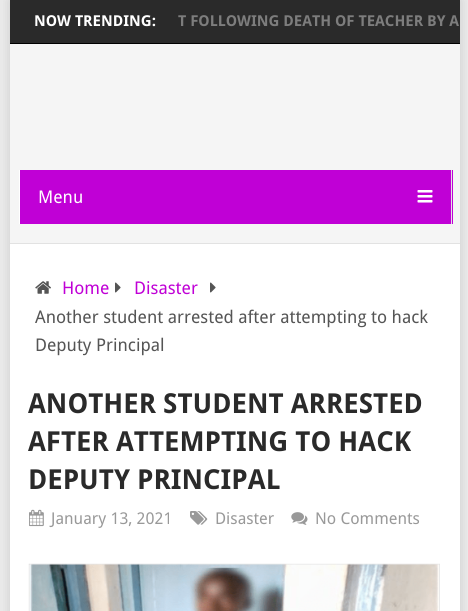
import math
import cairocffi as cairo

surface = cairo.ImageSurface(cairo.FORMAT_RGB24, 468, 611)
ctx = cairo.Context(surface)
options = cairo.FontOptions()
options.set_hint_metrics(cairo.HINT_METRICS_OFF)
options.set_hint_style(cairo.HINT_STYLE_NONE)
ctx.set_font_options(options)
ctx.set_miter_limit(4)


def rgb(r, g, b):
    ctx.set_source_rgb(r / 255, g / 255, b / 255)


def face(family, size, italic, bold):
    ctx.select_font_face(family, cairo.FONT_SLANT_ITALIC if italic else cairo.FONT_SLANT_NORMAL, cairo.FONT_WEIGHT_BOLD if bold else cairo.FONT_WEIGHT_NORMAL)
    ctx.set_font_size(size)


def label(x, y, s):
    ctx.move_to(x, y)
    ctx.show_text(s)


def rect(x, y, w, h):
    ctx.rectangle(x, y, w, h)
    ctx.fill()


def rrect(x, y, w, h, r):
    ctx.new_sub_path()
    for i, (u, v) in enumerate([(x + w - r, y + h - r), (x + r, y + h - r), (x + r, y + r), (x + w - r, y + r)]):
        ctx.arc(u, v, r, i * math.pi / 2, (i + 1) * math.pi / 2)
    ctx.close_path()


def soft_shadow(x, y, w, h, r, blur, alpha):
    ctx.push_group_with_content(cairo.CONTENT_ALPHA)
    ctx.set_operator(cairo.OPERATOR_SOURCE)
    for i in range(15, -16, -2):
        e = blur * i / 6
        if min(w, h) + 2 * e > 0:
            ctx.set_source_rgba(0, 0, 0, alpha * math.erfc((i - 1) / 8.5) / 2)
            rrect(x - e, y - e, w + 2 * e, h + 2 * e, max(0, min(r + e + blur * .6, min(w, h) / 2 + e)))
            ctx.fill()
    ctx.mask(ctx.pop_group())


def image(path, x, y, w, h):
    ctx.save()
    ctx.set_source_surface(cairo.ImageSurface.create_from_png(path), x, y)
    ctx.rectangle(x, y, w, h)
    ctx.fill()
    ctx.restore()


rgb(235, 235, 235)
ctx.paint()
rgb(50, 50, 50)
soft_shadow(10, 0, 450, 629, 0, 6, 0.17)
rgb(255, 255, 255)
rect(10, 244, 450, 367)
rgb(42, 42, 42)
rect(10, 0, 450, 43)
rgb(0, 0, 0)
rect(10, 43, 450, 1)
face('Droid Sans', 15, 0, 1)
rgb(255, 255, 255)
label(34, 26, 'NOW TRENDING:')
rgb(125, 125, 125)
label(178, 26, 'T FOLLOWING DEATH OF TEACHER BY A')
rgb(245, 245, 245)
rect(10, 44, 450, 199)
rgb(226, 226, 226)
rect(10, 243, 450, 1)
rgb(192, 0, 214)
rect(20, 170, 433, 54)
rgb(226, 226, 226)
rect(451, 170, 1, 54)
rgb(255, 255, 255)
rect(19, 170, 1, 54)
face('Droid Sans', 17.5, 0, 0)
label(38, 203, 'Menu')
image('image0.png', 417, 190, 16, 13)
image('image1.png', 35, 281, 16, 13)
rgb(192, 0, 214)
label(62, 294, 'Home')
image('image2.png', 115, 282, 6, 11)
label(134, 294, 'Disaster')
image('image2.png', 210, 282, 6, 11)
rgb(85, 85, 85)
label(35, 323, 'Another student arrested after attempting to hack')
label(35, 351, 'Deputy Principal')
face('Droid Sans', 27.5, 0, 1)
rgb(42, 42, 42)
label(28, 413, 'ANOTHER STUDENT ARRESTED')
label(28, 451, 'AFTER ATTEMPTING TO HACK')
label(28, 489, 'DEPUTY PRINCIPAL')
image('image3.png', 29, 509, 15, 18)
face('Droid Sans', 16.25, 0, 0)
rgb(153, 153, 153)
label(51, 524, 'January 13, 2021')
image('image4.png', 190, 511, 18, 14)
label(215, 524, 'Disaster')
image('image5.png', 291, 512, 17, 13)
label(315, 524, 'No Comments')
image('image6.png', 28, 563, 412, 48)
surface.write_to_png('render.png')
